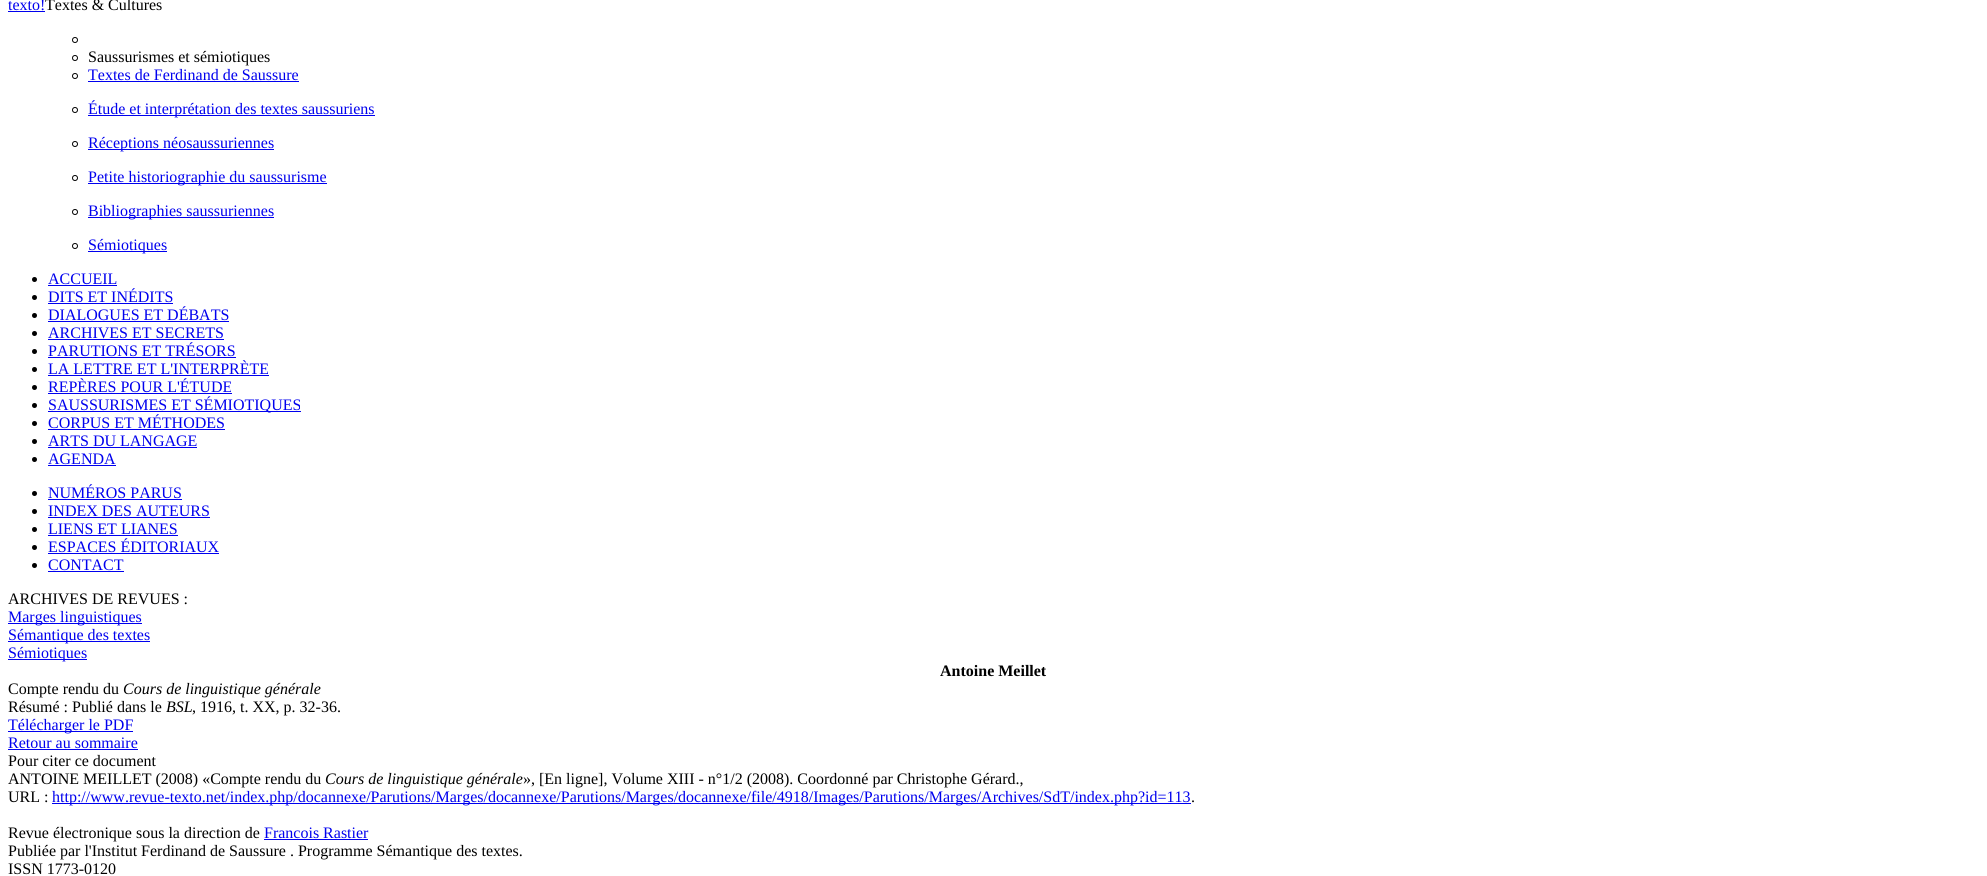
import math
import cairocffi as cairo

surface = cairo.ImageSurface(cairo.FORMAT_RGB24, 1987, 876)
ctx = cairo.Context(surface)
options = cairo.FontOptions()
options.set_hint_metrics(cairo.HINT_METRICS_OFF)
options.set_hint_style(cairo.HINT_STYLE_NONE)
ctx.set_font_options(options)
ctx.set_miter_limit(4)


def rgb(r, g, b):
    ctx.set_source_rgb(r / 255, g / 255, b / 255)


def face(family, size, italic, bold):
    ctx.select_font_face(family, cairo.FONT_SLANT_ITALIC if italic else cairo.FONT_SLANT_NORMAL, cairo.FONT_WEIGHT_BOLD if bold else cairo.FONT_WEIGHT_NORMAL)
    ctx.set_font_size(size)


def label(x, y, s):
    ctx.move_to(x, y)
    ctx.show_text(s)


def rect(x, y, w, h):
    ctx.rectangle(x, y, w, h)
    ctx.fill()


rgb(255, 255, 255)
ctx.paint()
face('Liberation Serif', 16, 0, 0)
rgb(0, 0, 238)
label(8, 10, 'texto!')
rect(8, 11, 37, 1)
rgb(0, 0, 0)
label(45, 10, 'Textes & Cultures')
ctx.new_path()
ctx.arc(75, 40, 2.5, 0, 2 * math.pi)
ctx.set_line_width(1)
ctx.stroke()
ctx.arc(75, 58, 2.5, 0, 2 * math.pi)
ctx.stroke()
label(88, 62, 'Saussurismes et sémiotiques')
ctx.new_path()
ctx.arc(75, 76, 2.5, 0, 2 * math.pi)
ctx.stroke()
rgb(0, 0, 238)
label(88, 80, 'Textes de Ferdinand de Saussure')
rect(88, 81, 211, 1)
ctx.new_path()
ctx.arc(75, 110, 2.5, 0, 2 * math.pi)
rgb(0, 0, 0)
ctx.stroke()
rgb(0, 0, 238)
rect(88, 115, 287, 1)
label(88, 114, 'Étude et interprétation des textes saussuriens')
ctx.new_path()
ctx.arc(75, 144, 2.5, 0, 2 * math.pi)
rgb(0, 0, 0)
ctx.stroke()
rgb(0, 0, 238)
rect(88, 149, 186, 1)
label(88, 148, 'Réceptions néosaussuriennes')
ctx.new_path()
ctx.arc(75, 178, 2.5, 0, 2 * math.pi)
rgb(0, 0, 0)
ctx.stroke()
rgb(0, 0, 238)
rect(88, 183, 239, 1)
label(88, 182, 'Petite historiographie du saussurisme')
ctx.new_path()
ctx.arc(75, 212, 2.5, 0, 2 * math.pi)
rgb(0, 0, 0)
ctx.stroke()
rgb(0, 0, 238)
rect(88, 217, 186, 1)
label(88, 216, 'Bibliographies saussuriennes')
ctx.new_path()
ctx.arc(75, 246, 2.5, 0, 2 * math.pi)
rgb(0, 0, 0)
ctx.stroke()
rgb(0, 0, 238)
rect(88, 251, 79, 1)
label(88, 250, 'Sémiotiques')
rgb(0, 0, 0)
ctx.new_path()
ctx.arc(34.5, 279.5, 2.5, 0, 2 * math.pi)
ctx.fill()
rgb(0, 0, 238)
label(48, 284, 'ACCUEIL')
rect(48, 285, 69, 1)
rgb(0, 0, 0)
ctx.new_path()
ctx.arc(34.5, 297.5, 2.5, 0, 2 * math.pi)
ctx.fill()
rgb(0, 0, 238)
label(48, 302, 'DITS ET INÉDITS')
rect(48, 303, 125, 1)
rgb(0, 0, 0)
ctx.new_path()
ctx.arc(34.5, 315.5, 2.5, 0, 2 * math.pi)
ctx.fill()
rgb(0, 0, 238)
label(48, 320, 'DIALOGUES ET DÉBATS')
rect(48, 321, 181, 1)
rgb(0, 0, 0)
ctx.new_path()
ctx.arc(34.5, 333.5, 2.5, 0, 2 * math.pi)
ctx.fill()
rgb(0, 0, 238)
label(48, 338, 'ARCHIVES ET SECRETS')
rect(48, 339, 176, 1)
rgb(0, 0, 0)
ctx.new_path()
ctx.arc(34.5, 351.5, 2.5, 0, 2 * math.pi)
ctx.fill()
rgb(0, 0, 238)
label(48, 356, 'PARUTIONS ET TRÉSORS')
rect(48, 357, 188, 1)
rgb(0, 0, 0)
ctx.new_path()
ctx.arc(34.5, 369.5, 2.5, 0, 2 * math.pi)
ctx.fill()
rgb(0, 0, 238)
label(48, 374, 'LA LETTRE ET L\'INTERPRÈTE')
rect(48, 375, 221, 1)
rgb(0, 0, 0)
ctx.new_path()
ctx.arc(34.5, 387.5, 2.5, 0, 2 * math.pi)
ctx.fill()
rgb(0, 0, 238)
label(48, 392, 'REPÈRES POUR L\'ÉTUDE')
rect(48, 393, 184, 1)
rgb(0, 0, 0)
ctx.new_path()
ctx.arc(34.5, 405.5, 2.5, 0, 2 * math.pi)
ctx.fill()
rgb(0, 0, 238)
rect(48, 411, 253, 1)
label(48, 410, 'SAUSSURISMES ET SÉMIOTIQUES')
rgb(0, 0, 0)
ctx.new_path()
ctx.arc(34.5, 423.5, 2.5, 0, 2 * math.pi)
ctx.fill()
rgb(0, 0, 238)
label(48, 428, 'CORPUS ET MÉTHODES')
rect(48, 429, 177, 1)
rgb(0, 0, 0)
ctx.new_path()
ctx.arc(34.5, 441.5, 2.5, 0, 2 * math.pi)
ctx.fill()
rgb(0, 0, 238)
label(48, 446, 'ARTS DU LANGAGE')
rect(48, 447, 149, 1)
rgb(0, 0, 0)
ctx.new_path()
ctx.arc(34.5, 459.5, 2.5, 0, 2 * math.pi)
ctx.fill()
rgb(0, 0, 238)
label(48, 464, 'AGENDA')
rect(48, 465, 68, 1)
rgb(0, 0, 0)
ctx.new_path()
ctx.arc(34.5, 493.5, 2.5, 0, 2 * math.pi)
ctx.fill()
rgb(0, 0, 238)
label(48, 498, 'NUMÉROS PARUS')
rect(48, 499, 134, 1)
rgb(0, 0, 0)
ctx.new_path()
ctx.arc(34.5, 511.5, 2.5, 0, 2 * math.pi)
ctx.fill()
rgb(0, 0, 238)
label(48, 516, 'INDEX DES AUTEURS')
rect(48, 517, 162, 1)
rgb(0, 0, 0)
ctx.new_path()
ctx.arc(34.5, 529.5, 2.5, 0, 2 * math.pi)
ctx.fill()
rgb(0, 0, 238)
label(48, 534, 'LIENS ET LIANES')
rect(48, 535, 130, 1)
rgb(0, 0, 0)
ctx.new_path()
ctx.arc(34.5, 547.5, 2.5, 0, 2 * math.pi)
ctx.fill()
rgb(0, 0, 238)
label(48, 552, 'ESPACES ÉDITORIAUX')
rect(48, 553, 171, 1)
rgb(0, 0, 0)
ctx.new_path()
ctx.arc(34.5, 565.5, 2.5, 0, 2 * math.pi)
ctx.fill()
rgb(0, 0, 238)
label(48, 570, 'CONTACT')
rect(48, 571, 76, 1)
rgb(0, 0, 0)
label(8, 604, 'ARCHIVES DE REVUES :')
rgb(0, 0, 238)
rect(8, 623, 134, 1)
label(8, 622, 'Marges linguistiques')
rect(8, 641, 142, 1)
label(8, 640, 'Sémantique des textes')
rect(8, 659, 79, 1)
label(8, 658, 'Sémiotiques')
face('Liberation Serif', 16, 0, 1)
rgb(0, 0, 0)
label(940, 676, 'Antoine Meillet')
face('Liberation Serif', 16, 0, 0)
label(8, 694, 'Compte rendu du')
face('Liberation Serif', 16, 1, 0)
label(123, 694, 'Cours de linguistique générale')
face('Liberation Serif', 16, 0, 0)
label(8, 712, 'Résumé : Publié dans le')
face('Liberation Serif', 16, 1, 0)
label(166, 712, 'BSL')
face('Liberation Serif', 16, 0, 0)
label(192, 712, ', 1916, t. XX, p. 32-36.')
rgb(0, 0, 238)
rect(8, 731, 125, 1)
label(8, 730, 'Télécharger le PDF')
label(8, 748, 'Retour au sommaire')
rect(8, 749, 130, 1)
rgb(0, 0, 0)
label(8, 766, 'Pour citer ce document')
label(8, 784, 'ANTOINE MEILLET (2008) «Compte rendu du')
face('Liberation Serif', 16, 1, 0)
label(325, 784, 'Cours de linguistique générale')
face('Liberation Serif', 16, 0, 0)
label(523, 784, '», [En ligne], Volume XIII - n°1/2 (2008). Coordonné par Christophe Gérard.,')
label(8, 802, 'URL :')
rgb(0, 0, 238)
rect(52, 803, 1139, 1)
label(52, 802, 'http://www.revue-texto.net/index.php/docannexe/Parutions/Marges/docannexe/Parutions/Marges/docannexe/file/4918/Images/Parutions/Marges/Archives/SdT/index.php?id=113')
rgb(0, 0, 0)
label(1191, 802, '.')
label(8, 838, 'Revue électronique sous la direction de')
rgb(0, 0, 238)
label(264, 838, 'Francois Rastier')
rect(264, 839, 104, 1)
rgb(0, 0, 0)
label(8, 856, 'Publiée par l\'Institut Ferdinand de Saussure . Programme Sémantique des textes.')
label(8, 874, 'ISSN 1773-0120')
surface.write_to_png('render.png')
